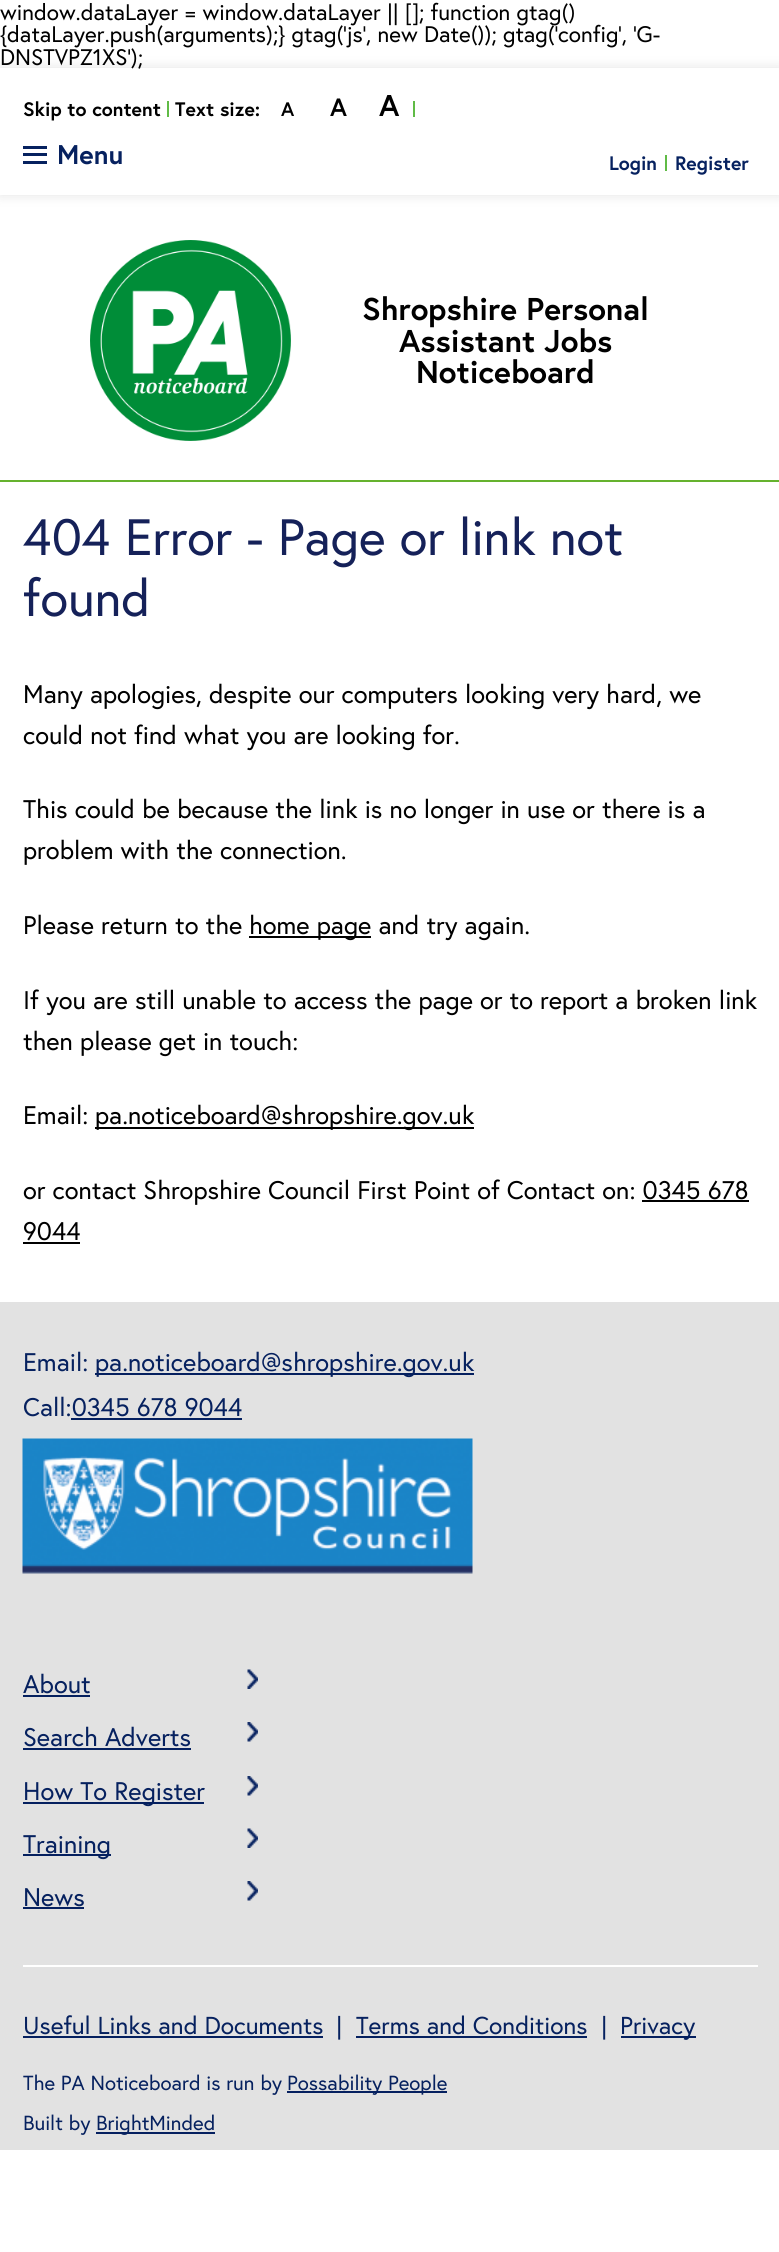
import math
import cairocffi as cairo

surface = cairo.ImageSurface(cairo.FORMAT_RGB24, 779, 2252)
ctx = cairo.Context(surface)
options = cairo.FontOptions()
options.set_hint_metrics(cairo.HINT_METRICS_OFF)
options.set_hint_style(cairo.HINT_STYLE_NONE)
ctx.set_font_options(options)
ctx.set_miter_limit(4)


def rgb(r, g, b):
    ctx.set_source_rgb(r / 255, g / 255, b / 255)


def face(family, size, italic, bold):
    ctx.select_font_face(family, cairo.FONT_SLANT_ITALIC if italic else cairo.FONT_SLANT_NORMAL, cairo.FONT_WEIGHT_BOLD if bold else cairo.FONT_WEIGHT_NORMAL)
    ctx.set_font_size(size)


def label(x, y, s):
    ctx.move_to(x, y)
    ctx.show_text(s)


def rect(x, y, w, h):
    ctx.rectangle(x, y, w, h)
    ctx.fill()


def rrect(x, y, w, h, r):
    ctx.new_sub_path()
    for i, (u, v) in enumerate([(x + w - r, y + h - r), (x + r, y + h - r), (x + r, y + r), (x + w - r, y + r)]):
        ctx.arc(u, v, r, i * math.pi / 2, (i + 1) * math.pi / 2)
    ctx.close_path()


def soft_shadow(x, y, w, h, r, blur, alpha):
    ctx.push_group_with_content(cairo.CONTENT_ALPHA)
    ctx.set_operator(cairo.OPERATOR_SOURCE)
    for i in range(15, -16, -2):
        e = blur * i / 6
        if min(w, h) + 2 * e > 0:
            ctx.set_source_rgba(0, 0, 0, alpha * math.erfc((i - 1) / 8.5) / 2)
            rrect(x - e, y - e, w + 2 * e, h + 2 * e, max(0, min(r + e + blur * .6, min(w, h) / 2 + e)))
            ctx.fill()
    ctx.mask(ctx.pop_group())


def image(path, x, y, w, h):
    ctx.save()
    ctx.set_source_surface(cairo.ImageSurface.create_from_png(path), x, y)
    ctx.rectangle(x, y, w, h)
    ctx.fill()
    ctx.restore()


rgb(255, 255, 255)
ctx.paint()
face('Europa', 22.5, 0, 0)
rgb(0, 0, 0)
label(0, 20, 'window.dataLayer = window.dataLayer || []; function gtag()')
ctx.save()
ctx.set_fill_rule(cairo.FILL_RULE_EVEN_ODD)
ctx.new_path()
ctx.move_to(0, 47)
ctx.line_to(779, 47)
ctx.line_to(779, 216)
ctx.line_to(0, 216)
ctx.close_path()
ctx.move_to(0, 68)
ctx.line_to(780, 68)
ctx.line_to(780, 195)
ctx.line_to(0, 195)
ctx.close_path()
ctx.clip()
rgb(0, 0, 0)
soft_shadow(0, 68, 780, 127, 0, 6.5, 0.11)
ctx.restore()
label(0, 42, '{dataLayer.push(arguments);} gtag(\'js\', new Date()); gtag(\'config\', \'G-')
label(0, 65, 'DNSTVPZ1XS\');')
face('Europa', 19.5, 0, 1)
label(23, 116, 'Skip to content')
rgb(96, 187, 70)
rect(167, 101, 2, 16)
rgb(0, 0, 0)
label(175, 116, 'Text size:')
label(281, 116, 'A')
face('Europa', 25, 0, 1)
label(330, 116, 'A')
face('Europa', 30, 0, 1)
label(379, 116, 'A')
rgb(96, 187, 70)
rect(413, 101, 2, 16)
rgb(6, 33, 95)
rect(23, 146, 24, 3)
rect(23, 153, 24, 3)
rect(23, 161, 24, 3)
face('Europa', 27, 0, 1)
label(57, 164, 'Menu')
face('Europa', 19.5, 0, 1)
label(609, 170, 'Login')
rgb(96, 187, 70)
rect(665, 155, 2, 16)
rgb(6, 33, 95)
label(675, 170, 'Register')
rgb(101, 178, 46)
rect(0, 480, 779, 2)
image('image0.png', 90, 240, 201, 201)
face('Europa', 31.5, 0, 1)
rgb(0, 0, 0)
label(362, 320, 'Shropshire Personal')
label(399, 352, 'Assistant Jobs')
label(416, 383, 'Noticeboard')
face('Europa', 51, 0, 0)
rgb(21, 33, 89)
label(23, 555, '404 Error - Page or link not')
label(23, 616, 'found')
face('Europa', 25.5, 0, 0)
rgb(0, 0, 0)
label(23, 703, 'Many apologies, despite our computers looking very hard, we')
label(23, 744, 'could not find what you are looking for.')
label(23, 818, 'This could be because the link is no longer in use or there is a')
label(23, 859, 'problem with the connection.')
label(23, 934, 'Please return to the')
rect(249, 936, 122, 2)
label(249, 934, 'home page and try again.')
label(23, 1009, 'If you are still unable to access the page or to report a broken link')
label(23, 1050, 'then please get in touch:')
label(23, 1124, 'Email:')
rect(95, 1127, 379, 2)
label(95, 1124, 'pa.noticeboard@shropshire.gov.uk')
label(23, 1199, 'or contact Shropshire Council First Point of Contact on: 0345 678')
label(23, 1240, '9044')
rect(642, 1200, 107, 2)
rect(23, 1242, 57, 2)
rgb(226, 226, 226)
rect(0, 1302, 779, 848)
rgb(6, 33, 95)
label(23, 1371, 'Email:')
rgb(5, 32, 95)
rect(95, 1373, 379, 2)
rgb(6, 33, 95)
label(95, 1371, 'pa.noticeboard@shropshire.gov.uk')
label(23, 1416, 'Call:0345 678 9044')
rgb(5, 32, 95)
rect(71, 1418, 171, 2)
image('image1.png', 22, 1438, 451, 136)
rgb(6, 33, 95)
label(23, 1693, 'About')
rgb(5, 32, 95)
rect(23, 1695, 67, 2)
image('image2.png', 247, 1669, 11, 20)
rgb(6, 33, 95)
label(23, 1746, 'Search Adverts')
rgb(5, 32, 95)
rect(23, 1748, 168, 2)
image('image3.png', 247, 1722, 11, 20)
rect(23, 1802, 181, 2)
rgb(6, 33, 95)
label(23, 1800, 'How To Register')
image('image3.png', 247, 1776, 11, 20)
rgb(5, 32, 95)
rect(23, 1854, 88, 2)
rgb(6, 33, 95)
label(23, 1853, 'Training')
image('image2.png', 247, 1828, 11, 20)
label(23, 1906, 'News')
rgb(5, 32, 95)
rect(23, 1907, 61, 2)
image('image3.png', 247, 1881, 11, 20)
rgb(255, 255, 255)
rect(23, 1965, 735, 2)
face('Europa', 24.5, 0, 0)
rgb(6, 33, 95)
label(23, 2034, 'Useful Links and Documents')
rgb(5, 32, 95)
rect(23, 2036, 300, 2)
rgb(6, 33, 95)
label(336, 2034, '|')
label(356, 2034, 'Terms and Conditions')
rgb(5, 32, 95)
rect(356, 2036, 231, 2)
rgb(6, 33, 95)
label(601, 2034, '|')
rgb(5, 32, 95)
rect(621, 2036, 75, 2)
rgb(6, 33, 95)
label(620, 2034, 'Privacy')
face('Europa', 20.4, 0, 0)
label(23, 2090, 'The PA Noticeboard is run by')
rgb(5, 32, 95)
rect(287, 2091, 160, 2)
rgb(6, 33, 95)
label(287, 2090, 'Possability People')
label(23, 2130, 'Built by')
rgb(5, 32, 95)
rect(96, 2132, 119, 2)
rgb(6, 33, 95)
label(96, 2130, 'BrightMinded')
surface.write_to_png('render.png')
